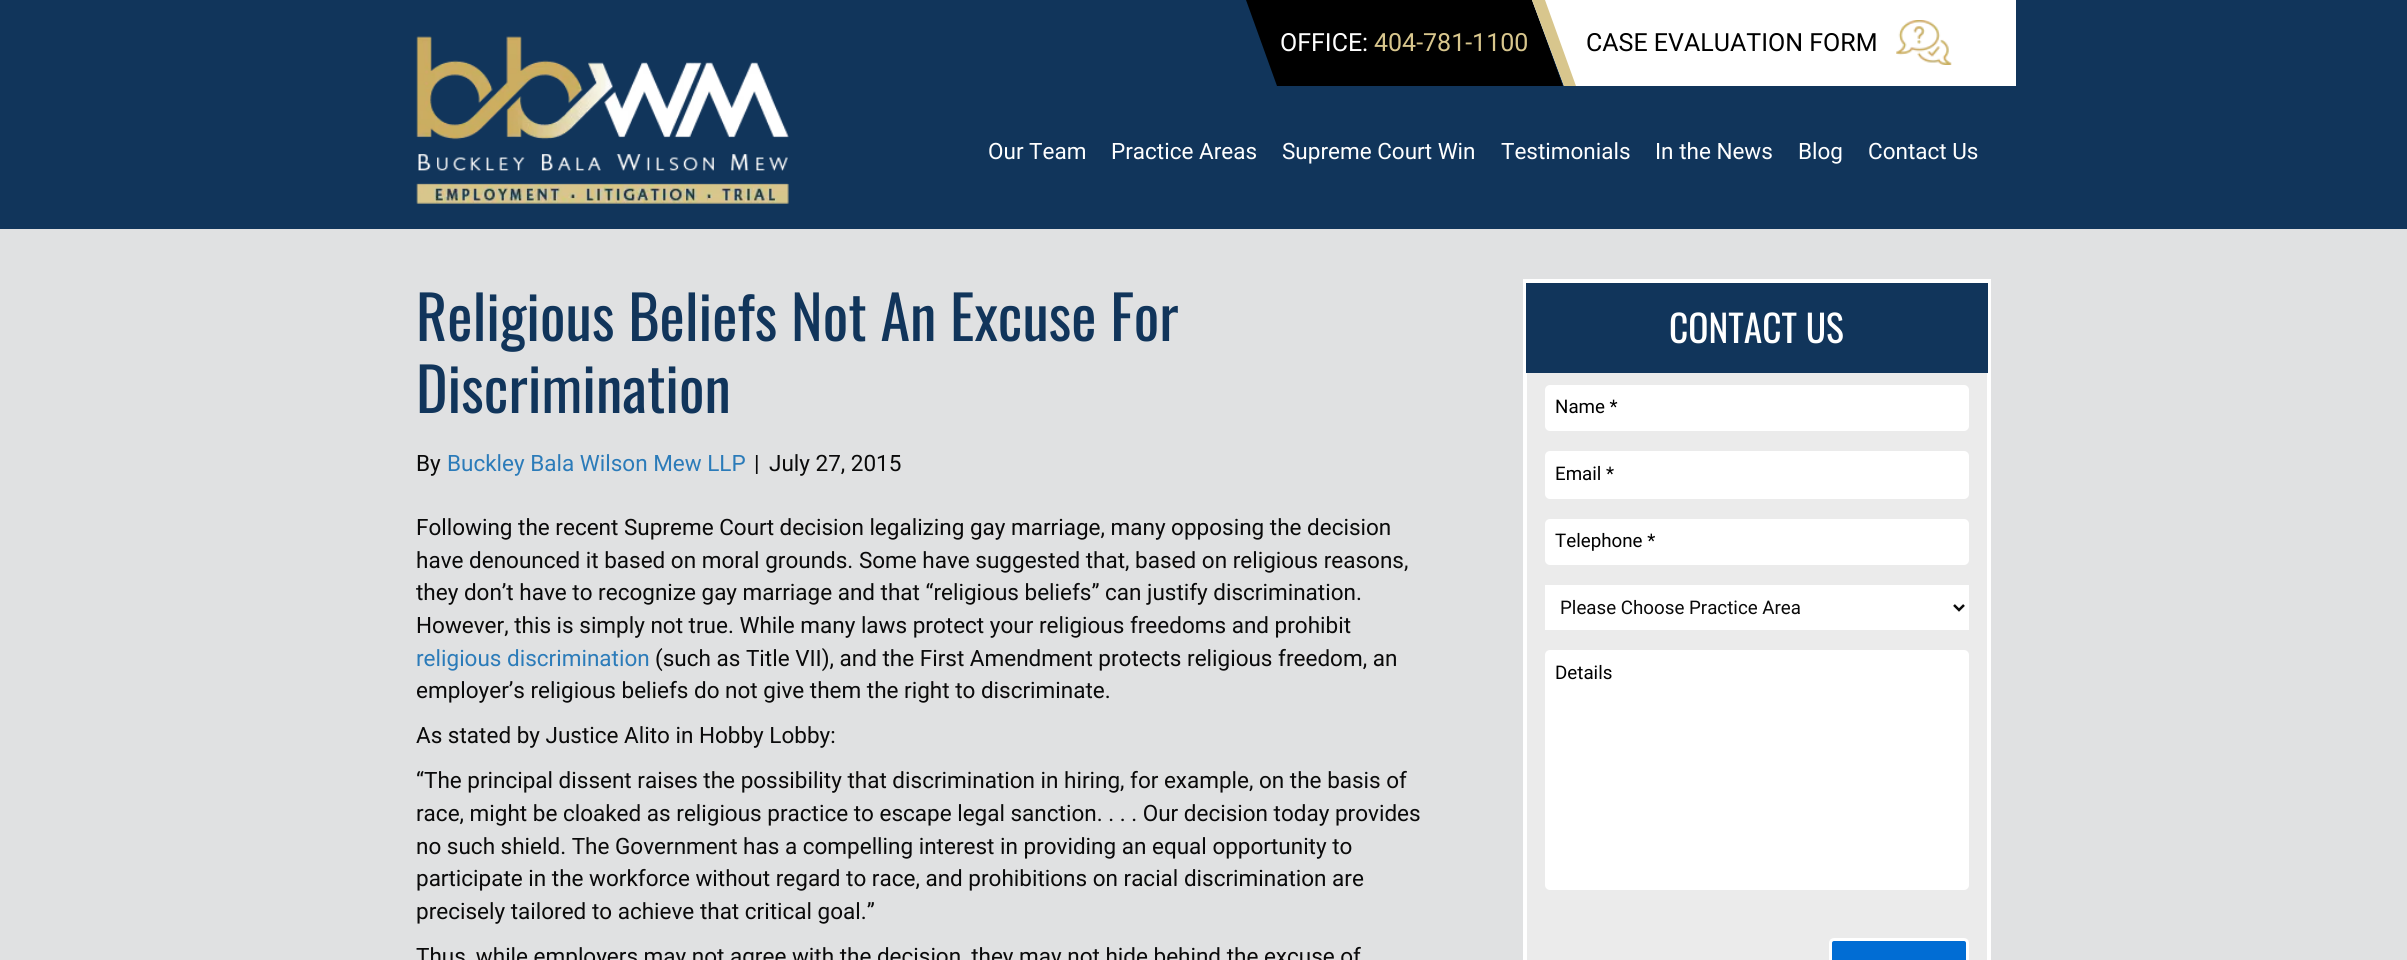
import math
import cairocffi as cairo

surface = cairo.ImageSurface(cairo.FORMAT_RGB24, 2407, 960)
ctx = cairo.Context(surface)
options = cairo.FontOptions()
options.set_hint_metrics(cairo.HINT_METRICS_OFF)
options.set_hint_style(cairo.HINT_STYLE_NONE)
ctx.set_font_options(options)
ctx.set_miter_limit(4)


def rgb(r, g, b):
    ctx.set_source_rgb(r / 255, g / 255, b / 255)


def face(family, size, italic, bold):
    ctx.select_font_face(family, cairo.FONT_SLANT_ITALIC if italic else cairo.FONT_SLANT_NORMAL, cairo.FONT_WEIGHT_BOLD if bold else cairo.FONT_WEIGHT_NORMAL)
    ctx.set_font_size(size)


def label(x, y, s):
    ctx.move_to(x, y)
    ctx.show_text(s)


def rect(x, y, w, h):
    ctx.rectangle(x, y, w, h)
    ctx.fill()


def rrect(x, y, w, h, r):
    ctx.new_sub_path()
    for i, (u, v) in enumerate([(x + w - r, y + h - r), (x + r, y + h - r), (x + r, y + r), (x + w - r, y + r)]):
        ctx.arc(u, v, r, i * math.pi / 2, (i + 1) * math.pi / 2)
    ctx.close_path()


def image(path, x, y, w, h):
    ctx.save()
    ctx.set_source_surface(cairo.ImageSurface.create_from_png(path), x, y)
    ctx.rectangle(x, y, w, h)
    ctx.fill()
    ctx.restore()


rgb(224, 225, 226)
ctx.paint()
rgb(17, 53, 91)
rect(0, 0, 2407, 229)
rgb(255, 255, 255)
rect(1936, 0, 80, 86)
rgb(0, 0, 0)
ctx.new_path()
ctx.move_to(1246, 0)
ctx.line_to(1532, 0)
ctx.line_to(1563, 86)
ctx.line_to(1277, 86)
ctx.close_path()
ctx.fill()
face('Roboto', 25, 0, 0)
rgb(255, 255, 255)
label(1280, 51, 'OFFICE:')
rgb(216, 198, 141)
label(1374, 51, '404-781-1100')
rgb(255, 255, 255)
ctx.new_path()
ctx.move_to(1532, 0)
ctx.line_to(1936, 0)
ctx.line_to(1968, 86)
ctx.line_to(1564, 86)
ctx.close_path()
ctx.fill()
rgb(216, 198, 141)
ctx.new_path()
ctx.move_to(1532, 0)
ctx.line_to(1545, 0)
ctx.line_to(1576, 86)
ctx.line_to(1564, 86)
ctx.close_path()
ctx.fill()
rgb(0, 0, 0)
label(1586, 51, 'CASE EVALUATION FORM')
image('image0.png', 1896, 20, 56, 45)
image('image1.png', 416, 36, 373, 168)
face('Roboto', 22.5, 0, 0)
rgb(255, 255, 255)
label(988, 159, 'Our Team')
label(1111, 159, 'Practice Areas')
label(1282, 159, 'Supreme Court Win')
label(1501, 159, 'Testimonials')
label(1655, 159, 'In the News')
label(1798, 159, 'Blog')
label(1868, 159, 'Contact Us')
face('Oswald', 60, 0, 0)
rgb(17, 53, 91)
label(416, 341, 'Religious Beliefs Not An Excuse For')
label(416, 413, 'Discrimination')
face('Roboto', 22.5, 0, 0)
rgb(10, 10, 10)
label(416, 471, 'By')
rgb(43, 123, 185)
label(447, 471, 'Buckley Bala Wilson Mew LLP')
rgb(10, 10, 10)
label(754, 471, '|')
label(769, 471, 'July 27, 2015')
label(416, 535, 'Following the recent Supreme Court decision legalizing gay marriage, many opposing the decision')
label(416, 568, 'have denounced it based on moral grounds. Some have suggested that, based on religious reasons,')
label(416, 600, 'they don’t have to recognize gay marriage and that “religious beliefs” can justify discrimination.')
label(416, 633, 'However, this is simply not true. While many laws protect your religious freedoms and prohibit')
rgb(43, 123, 185)
label(416, 666, 'religious discrimination')
rgb(10, 10, 10)
label(655, 666, '(such as Title VII), and the First Amendment protects religious freedom, an')
label(416, 698, 'employer’s religious beliefs do not give them the right to discriminate.')
label(416, 743, 'As stated by Justice Alito in Hobby Lobby:')
label(416, 788, '“The principal dissent raises the possibility that discrimination in hiring, for example, on the basis of')
label(416, 821, 'race, might be cloaked as religious practice to escape legal sanction. . . . Our decision today provides')
label(416, 854, 'no such shield. The Government has a compelling interest in providing an equal opportunity to')
label(416, 886, 'participate in the workforce without regard to race, and prohibitions on racial discrimination are')
label(416, 919, 'precisely tailored to achieve that critical goal.”')
label(416, 964, 'Thus, while employers may not agree with the decision, they may not hide behind the excuse of')
rgb(235, 235, 235)
rect(1527, 373, 460, 587)
ctx.rectangle(1525, 281, 464, 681)
rgb(255, 255, 255)
ctx.set_line_width(4)
ctx.stroke()
rgb(17, 53, 91)
rect(1526, 283, 462, 90)
face('Oswald', 37.5, 0, 0)
rgb(255, 255, 255)
label(1669, 343, 'CONTACT US')
rrect(1545, 385, 424, 46, 5)
ctx.fill()
face('Roboto', 18.75, 0, 0)
rgb(0, 0, 0)
label(1555, 413, 'Name *')
rgb(255, 255, 255)
rrect(1545, 451, 424, 48, 5)
ctx.fill()
rgb(0, 0, 0)
label(1555, 480, 'Email *')
rgb(255, 255, 255)
rrect(1545, 519, 424, 46, 5)
ctx.fill()
rgb(0, 0, 0)
label(1555, 547, 'Telephone *')
rgb(255, 255, 255)
rect(1545, 585, 424, 45)
ctx.new_path()
ctx.move_to(1954, 605)
ctx.line_to(1959, 610)
ctx.line_to(1964, 605)
rgb(10, 10, 10)
ctx.set_line_width(2.5)
ctx.stroke()
label(1560, 614, 'Please Choose Practice Area')
rgb(255, 255, 255)
rrect(1545, 650, 424, 240, 5)
ctx.fill()
rgb(0, 0, 0)
label(1555, 679, 'Details')
rgb(1, 109, 212)
rrect(1830.5, 939.5, 137, 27, 3.5)
ctx.fill_preserve()
rgb(255, 255, 255)
ctx.set_line_width(3)
ctx.stroke()
surface.write_to_png('render.png')
